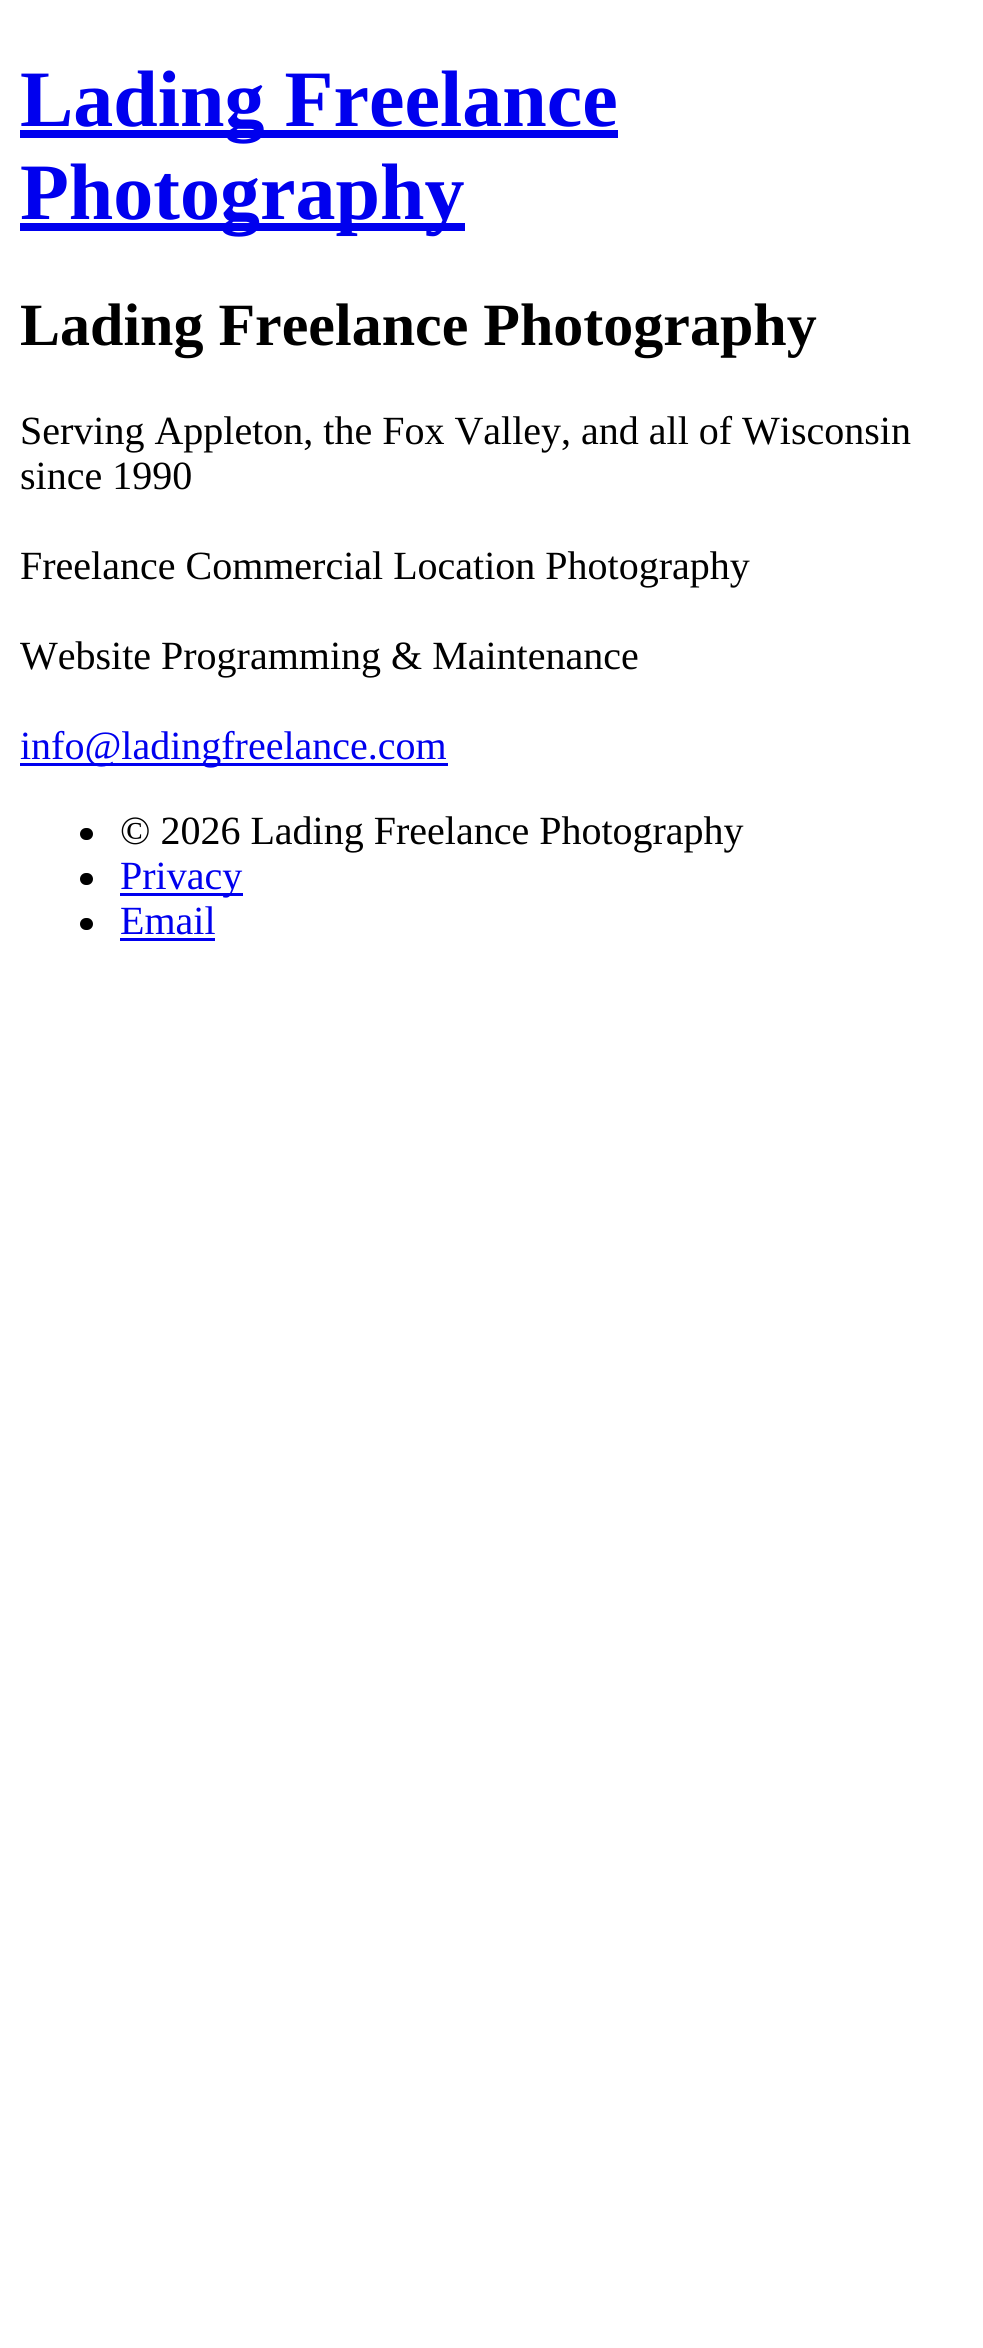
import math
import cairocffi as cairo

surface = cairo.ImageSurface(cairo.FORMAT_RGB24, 983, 2348)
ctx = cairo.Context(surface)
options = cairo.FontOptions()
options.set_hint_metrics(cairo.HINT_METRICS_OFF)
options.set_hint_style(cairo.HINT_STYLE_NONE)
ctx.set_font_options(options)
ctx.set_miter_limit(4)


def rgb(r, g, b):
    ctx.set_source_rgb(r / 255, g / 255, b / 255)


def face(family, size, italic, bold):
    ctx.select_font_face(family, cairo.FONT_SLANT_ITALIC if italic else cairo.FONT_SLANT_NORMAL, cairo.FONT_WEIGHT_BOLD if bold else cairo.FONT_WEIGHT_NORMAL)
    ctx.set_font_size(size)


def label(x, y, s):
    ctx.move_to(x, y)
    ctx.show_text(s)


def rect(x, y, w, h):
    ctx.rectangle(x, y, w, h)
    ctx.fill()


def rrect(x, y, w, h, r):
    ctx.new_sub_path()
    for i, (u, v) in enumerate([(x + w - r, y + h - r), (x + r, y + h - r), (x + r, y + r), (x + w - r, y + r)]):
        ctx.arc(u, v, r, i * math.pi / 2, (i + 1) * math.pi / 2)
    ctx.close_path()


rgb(255, 255, 255)
ctx.paint()
rgb(0, 0, 238)
rect(20, 130, 598, 8)
face('Liberation Serif', 80, 0, 1)
label(20, 126, 'Lading Freelance')
rect(20, 223, 445, 8)
label(20, 219, 'Photography')
face('Liberation Serif', 60, 0, 1)
rgb(0, 0, 0)
label(20, 345, 'Lading Freelance Photography')
face('Liberation Serif', 40, 0, 0)
label(20, 444, 'Serving Appleton, the Fox Valley, and all of Wisconsin')
label(20, 489, 'since 1990')
label(20, 579, 'Freelance Commercial Location Photography')
label(20, 669, 'Website Programming & Maintenance')
rgb(0, 0, 238)
rect(20, 763, 428, 3)
label(20, 759, 'info@ladingfreelance.com')
rgb(0, 0, 0)
rrect(80, 828, 13, 12, 6)
ctx.fill()
label(120, 844, '© 2026 Lading Freelance Photography')
rrect(80, 873, 13, 12, 6)
ctx.fill()
rgb(0, 0, 238)
rect(120, 893, 123, 3)
label(120, 889, 'Privacy')
rgb(0, 0, 0)
rrect(80, 918, 13, 12, 6)
ctx.fill()
rgb(0, 0, 238)
label(120, 934, 'Email')
rect(120, 938, 95, 3)
surface.write_to_png('render.png')
